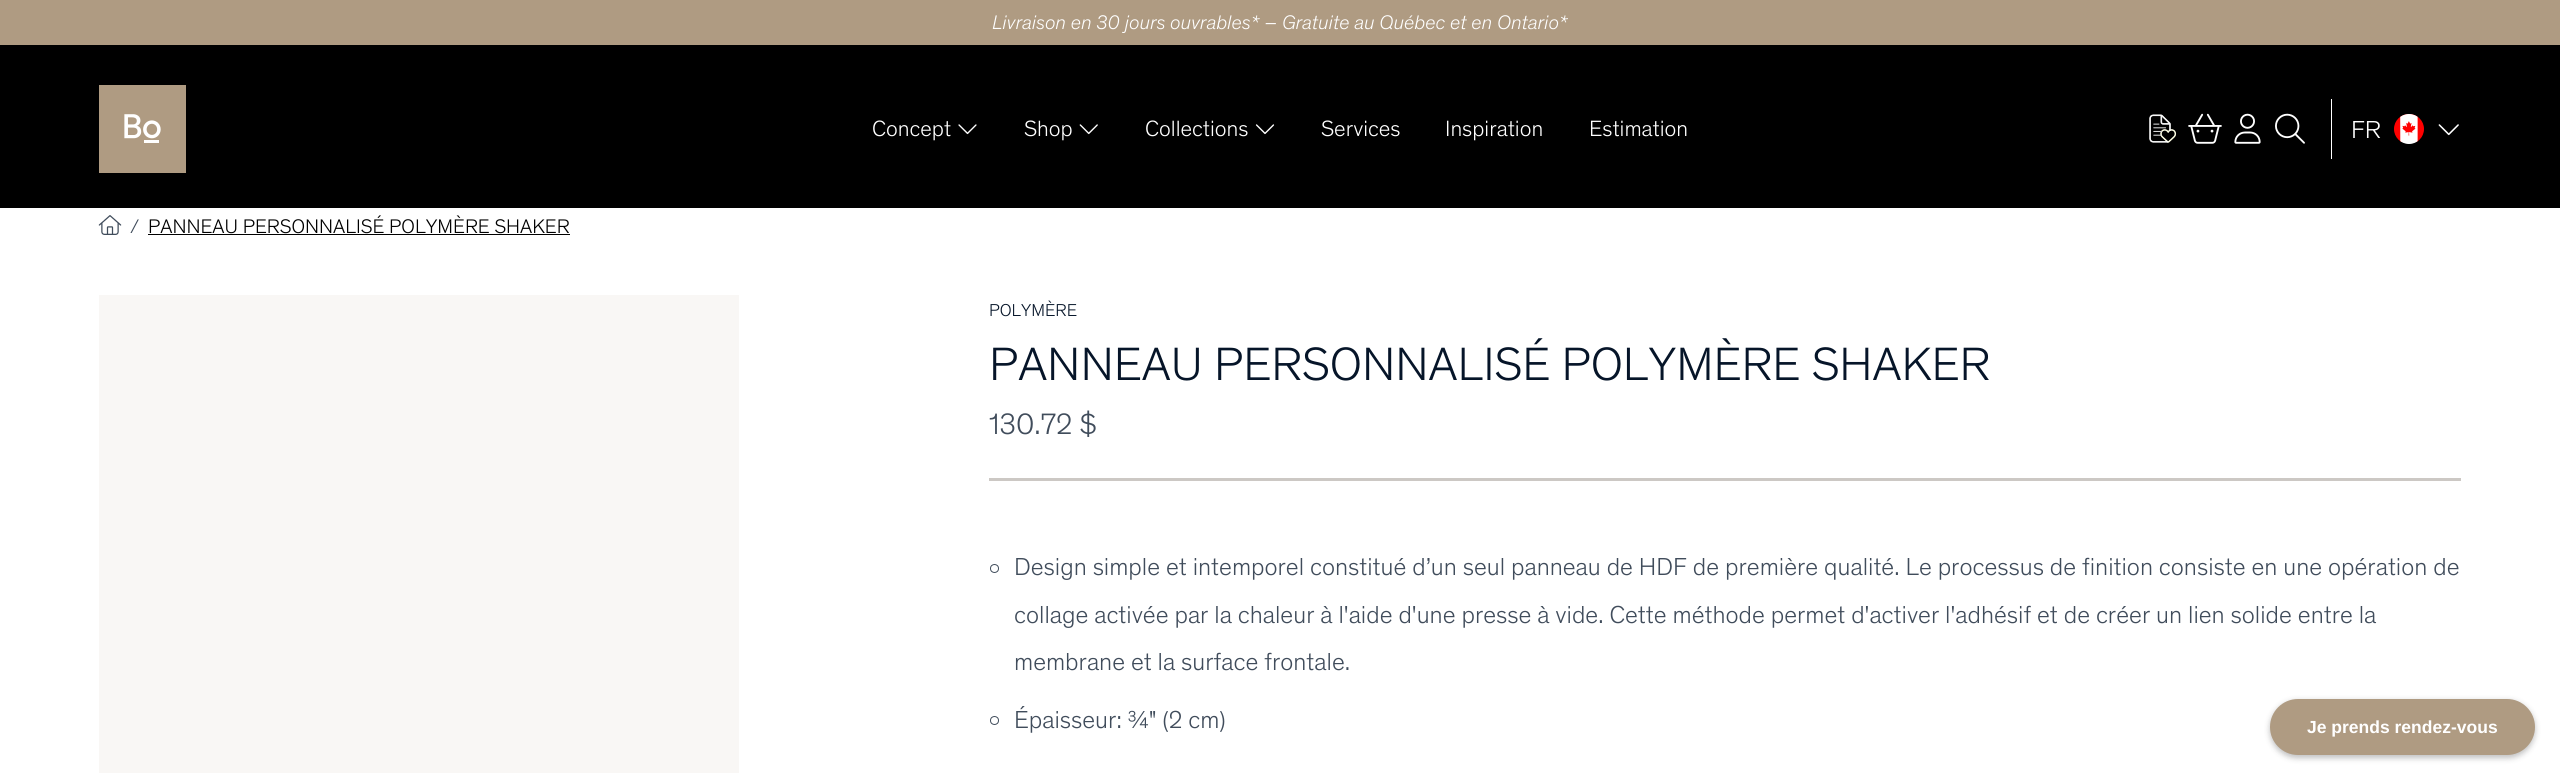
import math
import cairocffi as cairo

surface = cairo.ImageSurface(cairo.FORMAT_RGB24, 2560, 773)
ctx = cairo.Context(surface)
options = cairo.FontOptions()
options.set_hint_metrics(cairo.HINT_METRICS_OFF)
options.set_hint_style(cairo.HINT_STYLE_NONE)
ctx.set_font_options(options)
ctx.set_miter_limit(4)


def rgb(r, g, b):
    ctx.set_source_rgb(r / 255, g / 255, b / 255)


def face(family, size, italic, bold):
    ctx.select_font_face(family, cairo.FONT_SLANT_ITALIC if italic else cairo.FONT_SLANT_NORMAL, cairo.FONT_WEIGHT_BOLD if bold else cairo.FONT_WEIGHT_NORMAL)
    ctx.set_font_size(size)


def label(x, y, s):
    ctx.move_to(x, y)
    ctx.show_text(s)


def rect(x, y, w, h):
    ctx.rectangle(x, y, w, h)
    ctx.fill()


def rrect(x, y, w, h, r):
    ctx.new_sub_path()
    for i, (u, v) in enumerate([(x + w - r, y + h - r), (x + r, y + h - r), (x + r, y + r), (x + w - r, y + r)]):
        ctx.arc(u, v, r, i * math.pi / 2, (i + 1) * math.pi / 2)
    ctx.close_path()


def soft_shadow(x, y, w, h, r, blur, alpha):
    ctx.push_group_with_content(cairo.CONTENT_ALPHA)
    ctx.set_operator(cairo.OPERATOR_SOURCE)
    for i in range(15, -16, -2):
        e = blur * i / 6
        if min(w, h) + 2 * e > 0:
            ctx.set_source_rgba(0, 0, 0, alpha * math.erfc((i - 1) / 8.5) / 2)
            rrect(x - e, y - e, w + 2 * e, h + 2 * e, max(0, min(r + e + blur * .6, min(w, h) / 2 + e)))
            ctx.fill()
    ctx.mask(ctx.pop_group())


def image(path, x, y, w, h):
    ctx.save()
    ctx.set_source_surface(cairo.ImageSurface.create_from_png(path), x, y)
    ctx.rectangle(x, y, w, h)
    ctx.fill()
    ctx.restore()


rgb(255, 255, 255)
ctx.paint()
rgb(0, 0, 0)
rect(0, 45, 2560, 163)
rgb(175, 155, 130)
rect(0, 0, 2560, 45)
face('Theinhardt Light', 20, 1, 0)
rgb(255, 255, 255)
label(992, 29, 'Livraison en 30 jours ouvrables* – Gratuite au Québec et en Ontario*')
image('image0.png', 99, 85, 87, 88)
face('Theinhardt Light', 22.5, 0, 0)
label(872, 136, 'Concept')
image('image1.png', 958, 124, 19, 11)
label(1024, 136, 'Shop')
image('image2.png', 1079, 124, 19, 11)
label(1145, 136, 'Collections')
image('image3.png', 1255, 124, 20, 11)
label(1321, 136, 'Services')
label(1445, 136, 'Inspiration')
label(1589, 136, 'Estimation')
image('image4.png', 2149, 114, 28, 29)
image('image5.png', 2188, 113, 34, 31)
image('image6.png', 2234, 113, 27, 31)
image('image7.png', 2275, 113, 30, 31)
rect(2331, 99, 1, 60)
face('Theinhardt Light', 25, 0, 0)
label(2351, 138, 'FR')
image('image8.png', 2394, 114, 30, 30)
image('image9.png', 2438, 124, 21, 12)
image('image10.png', 98, 215, 24, 20)
face('Theinhardt Light', 20, 0, 0)
rgb(64, 76, 91)
label(130, 233, '/')
rgb(0, 0, 0)
label(148, 233, 'PANNEAU PERSONNALISÉ POLYMÈRE SHAKER')
rect(148, 234, 422, 1)
rgb(249, 247, 245)
rect(99, 295, 640, 478)
face('Theinhardt Light', 17.5, 0, 0)
rgb(6, 21, 41)
label(989, 316, 'POLYMÈRE')
face('Theinhardt Light', 47.5, 0, 0)
label(989, 380, 'PANNEAU PERSONNALISÉ POLYMÈRE SHAKER')
face('Theinhardt Light', 30, 0, 0)
rgb(64, 76, 91)
label(989, 434, '130.72 $')
rgb(204, 200, 196)
rect(989, 478, 1472, 3)
ctx.new_path()
ctx.arc(994.5, 568.5, 4, 0, 2 * math.pi)
rgb(64, 76, 91)
ctx.set_line_width(1)
ctx.stroke()
face('Theinhardt Light', 25, 0, 0)
label(1014, 575, 'Design simple et intemporel constitué d’un seul panneau de HDF de première qualité. Le processus de finition consiste en une opération de')
label(1014, 623, 'collage activée par la chaleur à l\'aide d\'une presse à vide. Cette méthode permet d\'activer l\'adhésif et de créer un lien solide entre la')
label(1014, 670, 'membrane et la surface frontale.')
ctx.new_path()
ctx.arc(994.5, 720.5, 4, 0, 2 * math.pi)
ctx.stroke()
label(1014, 728, 'Épaisseur: ¾" (2 cm)')
rgb(0, 0, 0)
soft_shadow(2270, 701, 265, 57, 28.5, 3, 0.25)
rgb(175, 155, 130)
rrect(2270, 699, 265, 56, 28)
ctx.fill()
face('Liberation Sans', 17.5, 0, 1)
rgb(255, 255, 255)
label(2307, 733, 'Je prends rendez-vous')
surface.write_to_png('render.png')
